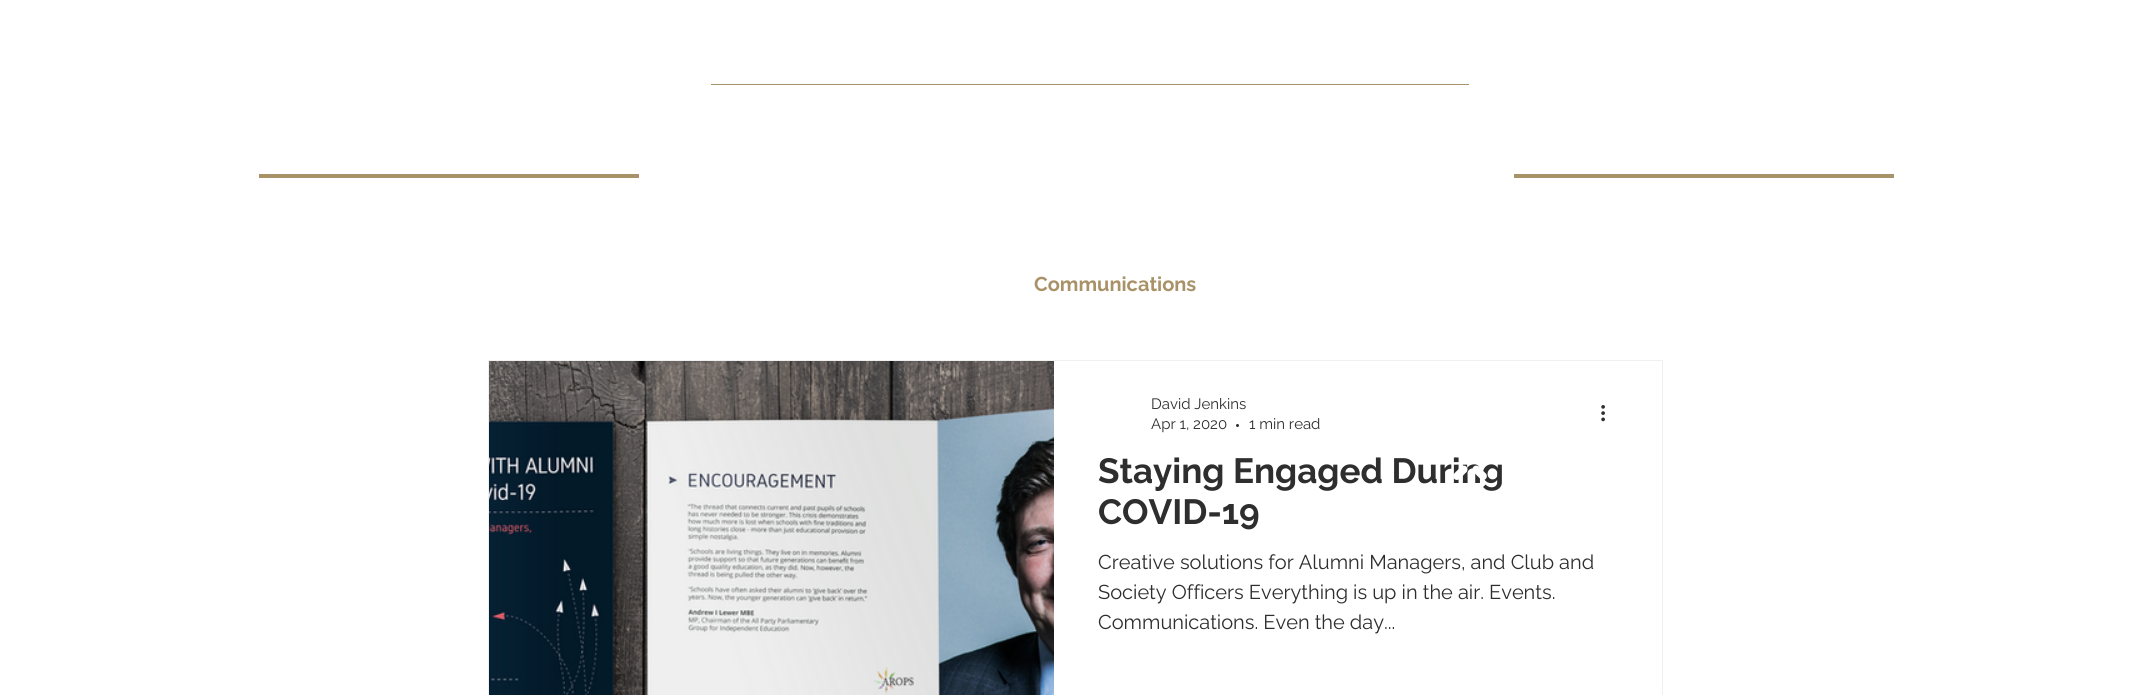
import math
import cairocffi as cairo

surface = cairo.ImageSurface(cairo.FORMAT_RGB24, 2148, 695)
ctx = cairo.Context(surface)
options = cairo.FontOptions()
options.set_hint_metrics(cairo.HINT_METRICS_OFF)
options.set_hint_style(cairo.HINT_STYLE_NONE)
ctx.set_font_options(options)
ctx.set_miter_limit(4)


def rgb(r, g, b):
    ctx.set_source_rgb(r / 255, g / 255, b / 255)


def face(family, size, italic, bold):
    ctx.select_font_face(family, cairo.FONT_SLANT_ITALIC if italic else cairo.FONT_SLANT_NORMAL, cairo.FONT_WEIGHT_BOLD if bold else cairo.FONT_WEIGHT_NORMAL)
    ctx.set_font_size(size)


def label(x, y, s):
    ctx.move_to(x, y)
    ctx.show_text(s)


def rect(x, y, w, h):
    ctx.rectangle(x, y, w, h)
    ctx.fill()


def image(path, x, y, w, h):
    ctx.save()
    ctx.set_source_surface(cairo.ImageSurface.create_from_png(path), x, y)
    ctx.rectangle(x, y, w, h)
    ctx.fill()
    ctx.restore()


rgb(255, 255, 255)
ctx.paint()
rgb(169, 146, 104)
rect(711, 84, 758, 1)
rect(259, 174, 380, 4)
rect(1514, 174, 380, 4)
face('Raleway', 20, 0, 1)
label(1034, 291, 'Communications')
ctx.rectangle(488.5, 360.5, 1174, 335)
rgb(240, 240, 240)
ctx.set_line_width(1)
ctx.stroke()
image('image0.png', 489, 361, 565, 334)
face('Raleway', 15, 0, 0)
rgb(47, 46, 46)
label(1151, 409, 'David Jenkins')
label(1151, 429, 'Apr 1, 2020')
ctx.new_path()
ctx.arc(1237.5, 425.5, 1.5, 0, 2 * math.pi)
ctx.fill()
label(1249, 429, '1 min read')
image('image1.png', 1601, 405, 4, 17)
face('Raleway', 35, 0, 1)
label(1098, 483, 'Staying Engaged During')
label(1098, 524, 'COVID-19')
face('Raleway', 20, 0, 0)
label(1098, 569, 'Creative solutions for Alumni Managers, and Club and')
label(1098, 599, 'Society Officers Everything is up in the air. Events.')
label(1098, 629, 'Communications. Even the day...')
image('image2.png', 1453, 457, 34, 23)
surface.write_to_png('render.png')
